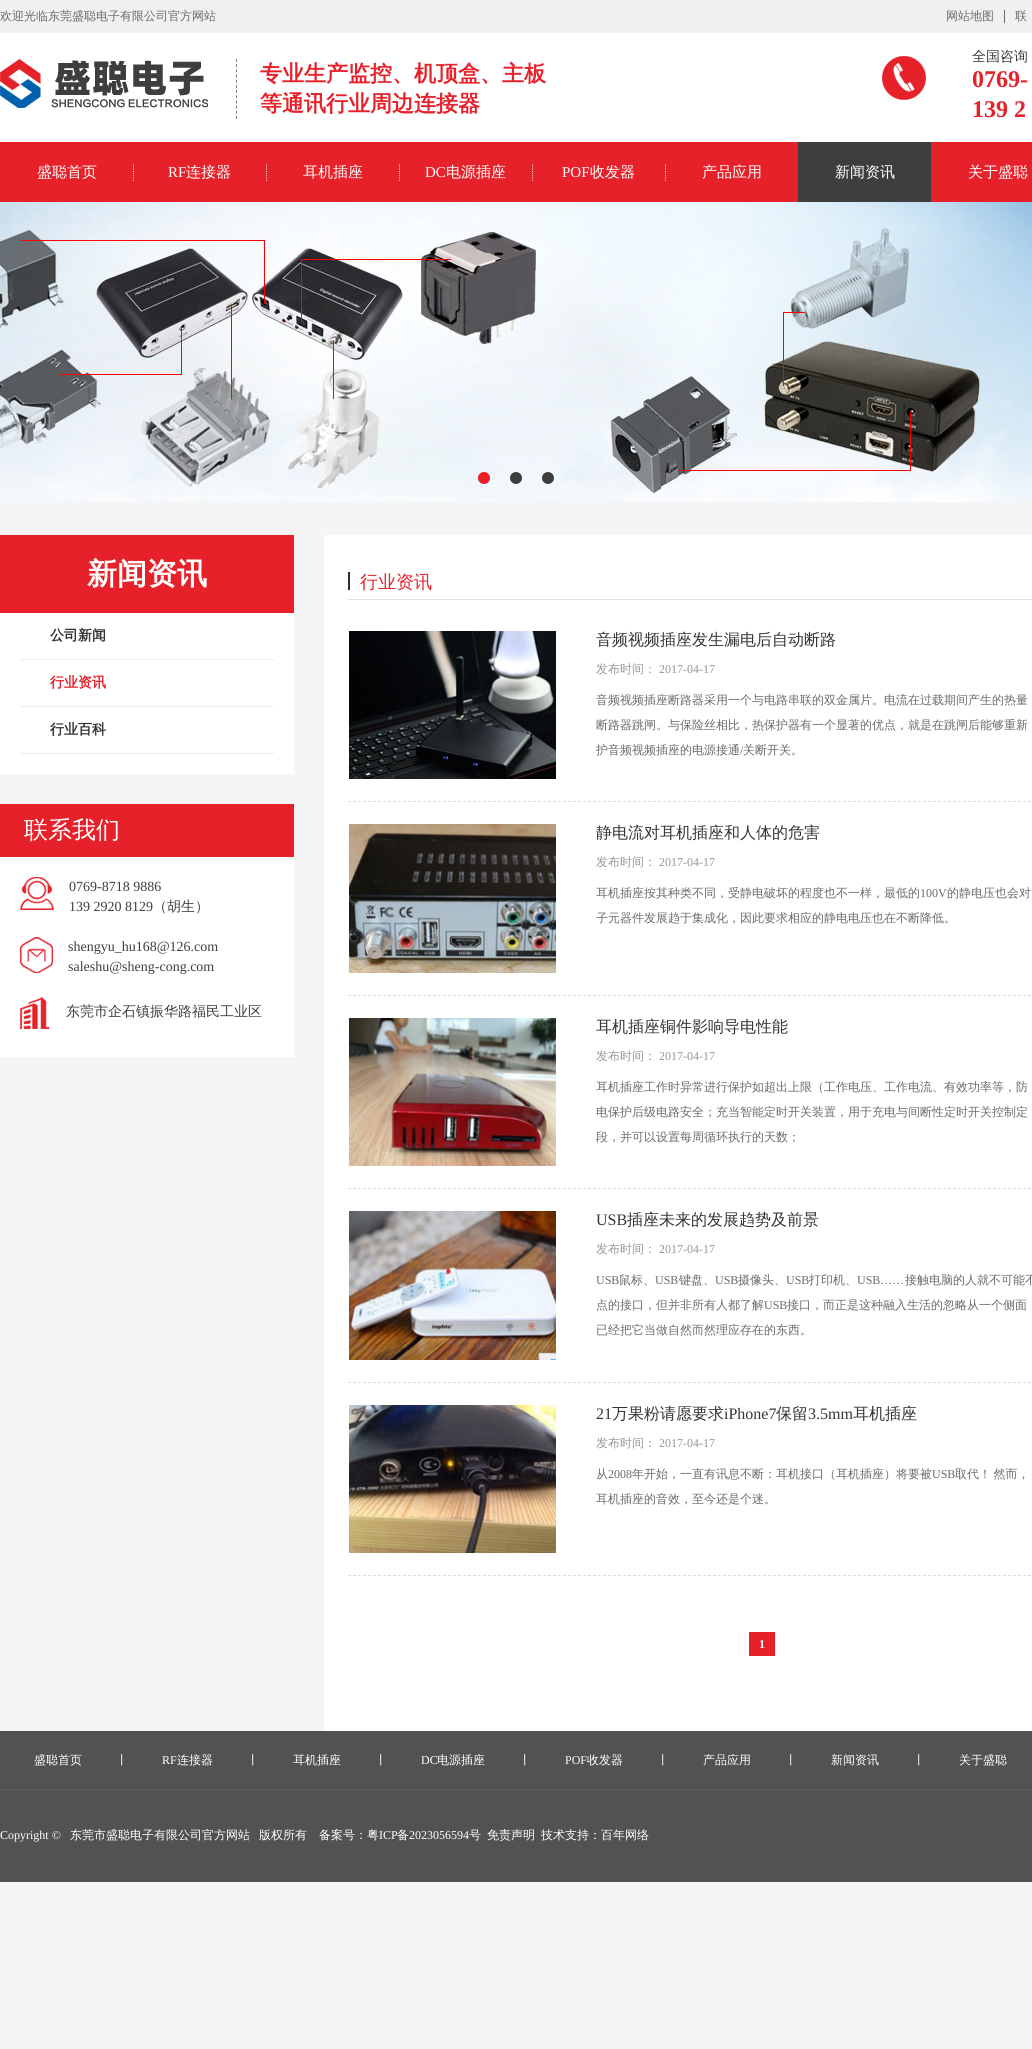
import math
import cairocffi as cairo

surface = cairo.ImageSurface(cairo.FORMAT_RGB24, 1032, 2049)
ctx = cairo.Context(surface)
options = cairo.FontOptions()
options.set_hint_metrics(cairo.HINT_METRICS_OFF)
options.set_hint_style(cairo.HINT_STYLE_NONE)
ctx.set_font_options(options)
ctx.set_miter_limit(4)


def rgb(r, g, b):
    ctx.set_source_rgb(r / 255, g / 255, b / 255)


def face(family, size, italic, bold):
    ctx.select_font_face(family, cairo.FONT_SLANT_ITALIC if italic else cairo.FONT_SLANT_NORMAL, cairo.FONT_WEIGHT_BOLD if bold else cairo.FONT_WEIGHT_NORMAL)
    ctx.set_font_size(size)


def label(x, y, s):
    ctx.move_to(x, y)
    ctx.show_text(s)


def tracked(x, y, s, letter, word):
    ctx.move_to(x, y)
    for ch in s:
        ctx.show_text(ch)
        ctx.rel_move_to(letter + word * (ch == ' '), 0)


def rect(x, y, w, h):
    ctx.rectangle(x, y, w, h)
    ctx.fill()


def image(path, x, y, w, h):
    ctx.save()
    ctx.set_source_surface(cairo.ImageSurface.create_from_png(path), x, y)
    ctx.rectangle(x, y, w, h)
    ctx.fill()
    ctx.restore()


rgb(245, 245, 245)
ctx.paint()
rgb(240, 240, 240)
rect(0, 0, 1032, 33)
face('WenQuanYi Zen Hei Medium', 12, 0, 0)
rgb(106, 106, 106)
label(0, 20, '欢迎光临东莞盛聪电子有限公司官方网站')
label(946, 20, '网站地图')
rect(1004, 10, 1, 13)
label(1015, 20, '联')
rgb(255, 255, 255)
rect(0, 33, 1032, 109)
image('image0.png', 0, 59, 208, 49)
ctx.new_path()
ctx.move_to(236.5, 59)
ctx.line_to(236.5, 119)
rgb(124, 124, 124)
ctx.set_line_width(1)
ctx.set_dash([3, 2.18])
ctx.stroke()
face('WenQuanYi Zen Hei', 22, 0, 1)
rgb(230, 33, 41)
label(260, 81, '专业生产监控、机顶盒、主板')
label(260, 111, '等通讯行业周边连接器')
image('image1.png', 882, 56, 44, 44)
face('WenQuanYi Zen Hei Medium', 14, 0, 0)
rgb(62, 62, 62)
label(972, 61, '全国咨询')
face('Liberation Serif', 24, 0, 1)
rgb(230, 33, 41)
label(972, 87, '0769-')
label(972, 117, '139 2')
rect(0, 142, 1032, 60)
face('WenQuanYi Zen Hei Medium', 15, 0, 0)
rgb(255, 255, 255)
label(37, 177, '盛聪首页')
image('image2.png', 133, 164, 1, 17)
face('Liberation Serif', 15, 0, 0)
label(168, 177, 'RF')
face('WenQuanYi Zen Hei Medium', 15, 0, 0)
label(186, 177, '连接器')
image('image2.png', 266, 164, 1, 17)
label(303, 177, '耳机插座')
image('image2.png', 399, 164, 1, 17)
face('Liberation Serif', 15, 0, 0)
label(425, 177, 'DC')
face('WenQuanYi Zen Hei Medium', 15, 0, 0)
label(446, 177, '电源插座')
image('image2.png', 532, 164, 1, 17)
face('Liberation Serif', 15, 0, 0)
label(562, 177, 'POF')
face('WenQuanYi Zen Hei Medium', 15, 0, 0)
label(590, 177, '收发器')
image('image2.png', 665, 164, 1, 17)
label(702, 177, '产品应用')
rgb(62, 62, 62)
rect(798, 142, 133, 60)
rgb(255, 255, 255)
label(835, 177, '新闻资讯')
label(968, 177, '关于盛聪')
image('image3.png', 0, 202, 1032, 300)
rgb(238, 29, 35)
ctx.arc(484, 478, 6, 0, 2 * math.pi)
ctx.fill()
rgb(62, 62, 62)
ctx.arc(516, 478, 6, 0, 2 * math.pi)
ctx.fill()
ctx.arc(548, 478, 6, 0, 2 * math.pi)
ctx.fill()
rgb(230, 33, 41)
rect(0, 535, 294, 78)
face('WenQuanYi Zen Hei', 30, 0, 1)
rgb(255, 255, 255)
label(87, 584, '新闻资讯')
rect(0, 613, 294, 161)
rgb(236, 236, 236)
rect(20, 659, 254, 1)
face('WenQuanYi Zen Hei', 14, 0, 1)
rgb(52, 52, 52)
label(50, 640, '公司新闻')
rgb(236, 236, 236)
rect(20, 706, 254, 1)
rgb(230, 33, 41)
label(50, 687, '行业资讯')
rgb(236, 236, 236)
rect(20, 753, 254, 1)
rgb(52, 52, 52)
label(50, 734, '行业百科')
rgb(230, 33, 41)
rect(0, 804, 294, 53)
face('WenQuanYi Zen Hei Medium', 24, 0, 0)
rgb(255, 255, 255)
label(24, 838, '联系我们')
rect(0, 857, 294, 200)
image('image4.png', 20, 877, 34, 33)
face('Liberation Serif', 14, 0, 0)
rgb(62, 62, 62)
label(69, 891, '0769-8718 9886')
label(69, 911, '139 2920 8129')
face('WenQuanYi Zen Hei Medium', 14, 0, 0)
label(153, 911, '（胡生）')
image('image5.png', 20, 937, 33, 36)
face('Liberation Serif', 14, 0, 0)
label(68, 951, 'shengyu_hu168@126.com')
label(68, 971, 'saleshu@sheng-cong.com')
image('image6.png', 20, 997, 30, 32)
face('WenQuanYi Zen Hei Medium', 14, 0, 0)
label(66, 1016, '东莞市企石镇振华路福民工业区')
rgb(255, 255, 255)
rect(324, 535, 708, 1196)
rgb(223, 223, 223)
rect(348, 599, 684, 1)
rgb(44, 44, 44)
rect(348, 572, 2, 18)
face('WenQuanYi Zen Hei Medium', 18, 0, 0)
rgb(230, 33, 41)
label(360, 588, '行业资讯')
ctx.new_path()
ctx.move_to(348, 801.5)
ctx.line_to(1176, 801.5)
rgb(222, 222, 222)
ctx.set_dash([3, 2])
ctx.stroke()
image('image7.png', 349, 631, 207, 148)
face('WenQuanYi Zen Hei Medium', 16, 0, 0)
rgb(52, 52, 52)
label(596, 645, '音频视频插座发生漏电后自动断路')
face('WenQuanYi Zen Hei Medium', 12, 0, 0)
rgb(150, 150, 150)
label(596, 673, '发布时间：')
face('Liberation Serif', 12, 0, 0)
label(659, 673, '2017-04-17')
face('WenQuanYi Zen Hei Medium', 12, 0, 0)
rgb(106, 106, 106)
label(596, 704, '音频视频插座断路器采用一个与电路串联的双金属片。电流在过载期间产生的热量')
label(596, 729, '断路器跳闸。与保险丝相比，热保护器有一个显著的优点，就是在跳闸后能够重新')
label(596, 754, '护音频视频插座的电源接通')
face('Liberation Serif', 12, 0, 0)
label(740, 754, '/')
face('WenQuanYi Zen Hei Medium', 12, 0, 0)
label(743, 754, '关断开关。')
ctx.new_path()
ctx.move_to(348, 995.5)
ctx.line_to(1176, 995.5)
rgb(222, 222, 222)
ctx.stroke()
image('image8.png', 349, 824, 207, 149)
face('WenQuanYi Zen Hei Medium', 16, 0, 0)
rgb(52, 52, 52)
label(596, 838, '静电流对耳机插座和人体的危害')
face('WenQuanYi Zen Hei Medium', 12, 0, 0)
rgb(150, 150, 150)
label(596, 866, '发布时间：')
face('Liberation Serif', 12, 0, 0)
label(659, 866, '2017-04-17')
face('WenQuanYi Zen Hei Medium', 12, 0, 0)
rgb(106, 106, 106)
label(596, 897, '耳机插座按其种类不同，受静电破坏的程度也不一样，最低的')
face('Liberation Serif', 12, 0, 0)
label(920, 897, '100V')
face('WenQuanYi Zen Hei Medium', 12, 0, 0)
label(947, 897, '的静电压也会对')
label(596, 922, '子元器件发展趋于集成化，因此要求相应的静电电压也在不断降低。')
ctx.new_path()
ctx.move_to(348, 1188.5)
ctx.line_to(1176, 1188.5)
rgb(222, 222, 222)
ctx.stroke()
image('image9.png', 349, 1018, 207, 148)
face('WenQuanYi Zen Hei Medium', 16, 0, 0)
rgb(52, 52, 52)
label(596, 1032, '耳机插座铜件影响导电性能')
face('WenQuanYi Zen Hei Medium', 12, 0, 0)
rgb(150, 150, 150)
label(596, 1060, '发布时间：')
face('Liberation Serif', 12, 0, 0)
label(659, 1060, '2017-04-17')
face('WenQuanYi Zen Hei Medium', 12, 0, 0)
rgb(106, 106, 106)
label(596, 1091, '耳机插座工作时异常进行保护如超出上限（工作电压、工作电流、有效功率等，防')
label(596, 1116, '电保护后级电路安全；充当智能定时开关装置，用于充电与间断性定时开关控制定')
label(596, 1141, '段，并可以设置每周循环执行的天数；')
ctx.new_path()
ctx.move_to(348, 1382.5)
ctx.line_to(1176, 1382.5)
rgb(222, 222, 222)
ctx.stroke()
image('image10.png', 349, 1211, 207, 149)
face('Liberation Serif', 16, 0, 0)
rgb(52, 52, 52)
label(596, 1225, 'USB')
face('WenQuanYi Zen Hei Medium', 16, 0, 0)
label(627, 1225, '插座未来的发展趋势及前景')
face('WenQuanYi Zen Hei Medium', 12, 0, 0)
rgb(150, 150, 150)
label(596, 1253, '发布时间：')
face('Liberation Serif', 12, 0, 0)
label(659, 1253, '2017-04-17')
rgb(106, 106, 106)
label(596, 1284, 'USB')
face('WenQuanYi Zen Hei Medium', 12, 0, 0)
label(619, 1284, '鼠标、')
face('Liberation Serif', 12, 0, 0)
label(655, 1284, 'USB')
face('WenQuanYi Zen Hei Medium', 12, 0, 0)
label(679, 1284, '键盘、')
face('Liberation Serif', 12, 0, 0)
label(715, 1284, 'USB')
face('WenQuanYi Zen Hei Medium', 12, 0, 0)
label(738, 1284, '摄像头、')
face('Liberation Serif', 12, 0, 0)
label(786, 1284, 'USB')
face('WenQuanYi Zen Hei Medium', 12, 0, 0)
label(809, 1284, '打印机、')
face('Liberation Serif', 12, 0, 0)
label(857, 1284, 'USB……')
face('WenQuanYi Zen Hei Medium', 12, 0, 0)
label(905, 1284, '接触电脑的人就不可能不')
label(596, 1309, '点的接口，但并非所有人都了解')
face('Liberation Serif', 12, 0, 0)
label(764, 1309, 'USB')
face('WenQuanYi Zen Hei Medium', 12, 0, 0)
label(787, 1309, '接口，而正是这种融入生活的忽略从一个侧面')
label(596, 1334, '已经把它当做自然而然理应存在的东西。')
ctx.new_path()
ctx.move_to(348, 1575.5)
ctx.line_to(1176, 1575.5)
rgb(222, 222, 222)
ctx.stroke()
image('image11.png', 349, 1405, 207, 148)
face('Liberation Serif', 16, 0, 0)
rgb(52, 52, 52)
label(596, 1419, '21')
face('WenQuanYi Zen Hei Medium', 16, 0, 0)
label(612, 1419, '万果粉请愿要求')
face('Liberation Serif', 16, 0, 0)
label(724, 1419, 'iPhone7')
face('WenQuanYi Zen Hei Medium', 16, 0, 0)
label(776, 1419, '保留')
face('Liberation Serif', 16, 0, 0)
label(808, 1419, '3.5mm')
face('WenQuanYi Zen Hei Medium', 16, 0, 0)
label(853, 1419, '耳机插座')
face('WenQuanYi Zen Hei Medium', 12, 0, 0)
rgb(150, 150, 150)
label(596, 1447, '发布时间：')
face('Liberation Serif', 12, 0, 0)
label(659, 1447, '2017-04-17')
face('WenQuanYi Zen Hei Medium', 12, 0, 0)
rgb(106, 106, 106)
label(596, 1478, '从')
face('Liberation Serif', 12, 0, 0)
label(608, 1478, '2008')
face('WenQuanYi Zen Hei Medium', 12, 0, 0)
label(632, 1478, '年开始，一直有讯息不断：耳机接口（耳机插座）将要被')
face('Liberation Serif', 12, 0, 0)
label(932, 1478, 'USB')
face('WenQuanYi Zen Hei Medium', 12, 0, 0)
tracked(955, 1478, '取代！ 然而，', 0, -1)
label(596, 1503, '耳机插座的音效，至今还是个迷。')
rgb(230, 33, 41)
rect(749, 1632, 26, 24)
face('Liberation Serif', 12, 0, 1)
rgb(255, 255, 255)
label(759, 1648, '1')
rgb(82, 82, 82)
rect(0, 1731, 1032, 151)
rgb(96, 96, 96)
rect(0, 1789, 1032, 1)
face('WenQuanYi Zen Hei Medium', 12, 0, 0)
rgb(255, 255, 255)
label(34, 1764, '盛聪首页')
label(116, 1764, '丨')
face('Liberation Serif', 12, 0, 0)
label(162, 1764, 'RF')
face('WenQuanYi Zen Hei Medium', 12, 0, 0)
label(177, 1764, '连接器')
label(247, 1764, '丨')
label(293, 1764, '耳机插座')
label(375, 1764, '丨')
face('Liberation Serif', 12, 0, 0)
label(421, 1764, 'DC')
face('WenQuanYi Zen Hei Medium', 12, 0, 0)
label(437, 1764, '电源插座')
label(519, 1764, '丨')
face('Liberation Serif', 12, 0, 0)
label(565, 1764, 'POF')
face('WenQuanYi Zen Hei Medium', 12, 0, 0)
label(587, 1764, '收发器')
label(657, 1764, '丨')
label(703, 1764, '产品应用')
label(785, 1764, '丨')
label(831, 1764, '新闻资讯')
label(913, 1764, '丨')
label(959, 1764, '关于盛聪')
face('Liberation Serif', 12, 0, 0)
label(0, 1839, 'Copyright ©')
face('WenQuanYi Zen Hei Medium', 12, 0, 0)
label(70, 1839, '东莞市盛聪电子有限公司官方网站')
label(259, 1839, '版权所有')
label(319, 1839, '备案号：粤')
face('Liberation Serif', 12, 0, 0)
label(379, 1839, 'ICP')
face('WenQuanYi Zen Hei Medium', 12, 0, 0)
label(397, 1839, '备')
face('Liberation Serif', 12, 0, 0)
label(409, 1839, '2023056594')
face('WenQuanYi Zen Hei Medium', 12, 0, 0)
label(469, 1839, '号')
label(487, 1839, '免责声明')
label(541, 1839, '技术支持：百年网络')
surface.write_to_png('render.png')
